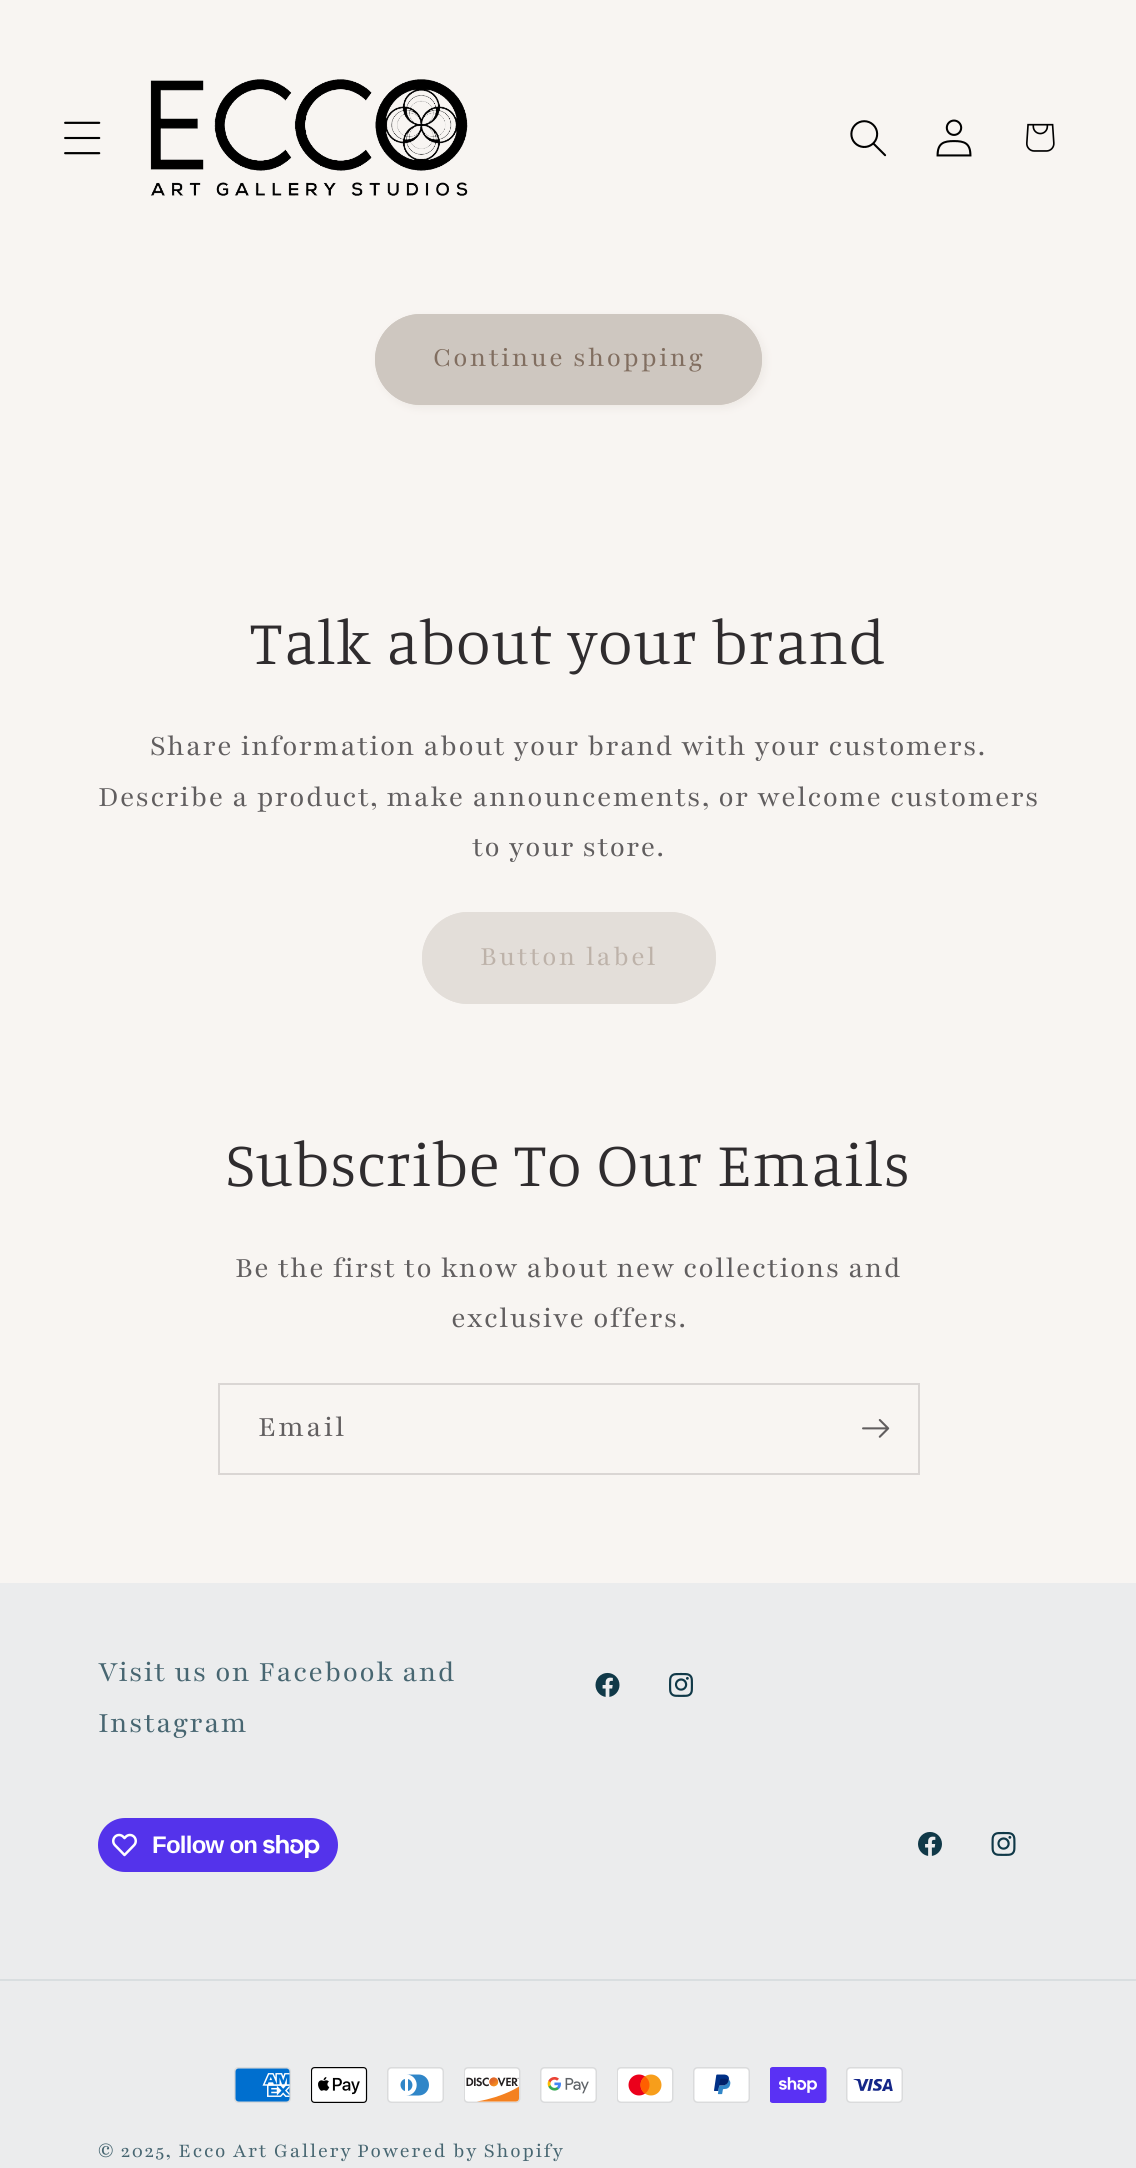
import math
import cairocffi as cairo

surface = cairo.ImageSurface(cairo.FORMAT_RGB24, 1136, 2168)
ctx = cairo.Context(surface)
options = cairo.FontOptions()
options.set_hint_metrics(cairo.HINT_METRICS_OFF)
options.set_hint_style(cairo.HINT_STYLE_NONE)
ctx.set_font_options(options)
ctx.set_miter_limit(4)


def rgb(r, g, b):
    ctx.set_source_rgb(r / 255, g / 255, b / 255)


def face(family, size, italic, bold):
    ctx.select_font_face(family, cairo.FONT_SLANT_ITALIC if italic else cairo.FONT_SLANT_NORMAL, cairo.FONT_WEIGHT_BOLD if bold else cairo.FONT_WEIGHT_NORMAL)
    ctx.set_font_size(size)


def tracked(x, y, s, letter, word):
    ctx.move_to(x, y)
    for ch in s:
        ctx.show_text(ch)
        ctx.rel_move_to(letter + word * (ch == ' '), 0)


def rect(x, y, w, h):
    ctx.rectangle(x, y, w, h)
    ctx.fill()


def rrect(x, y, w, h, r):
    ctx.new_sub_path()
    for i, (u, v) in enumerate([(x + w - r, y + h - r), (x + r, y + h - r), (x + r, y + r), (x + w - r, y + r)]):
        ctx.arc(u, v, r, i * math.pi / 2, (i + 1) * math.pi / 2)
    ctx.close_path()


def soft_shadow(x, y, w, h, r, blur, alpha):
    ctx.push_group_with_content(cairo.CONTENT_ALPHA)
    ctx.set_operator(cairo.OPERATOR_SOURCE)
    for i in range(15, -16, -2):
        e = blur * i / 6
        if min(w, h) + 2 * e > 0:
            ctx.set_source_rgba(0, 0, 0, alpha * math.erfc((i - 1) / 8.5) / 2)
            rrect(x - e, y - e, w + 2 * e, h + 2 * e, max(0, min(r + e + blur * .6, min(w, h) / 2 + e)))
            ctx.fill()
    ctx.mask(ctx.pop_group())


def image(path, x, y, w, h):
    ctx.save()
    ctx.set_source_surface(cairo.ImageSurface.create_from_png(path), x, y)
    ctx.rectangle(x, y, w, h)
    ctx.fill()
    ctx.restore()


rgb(248, 245, 242)
ctx.paint()
image('image0.png', 64, 121, 37, 34)
image('image1.png', 150, 79, 318, 117)
image('image2.png', 850, 120, 37, 37)
image('image3.png', 936, 119, 36, 38)
image('image4.png', 1026, 123, 29, 29)
rgb(146, 124, 105)
soft_shadow(378, 317, 387, 91, 45.5, 4, 0.1)
rgb(206, 199, 192)
rrect(375, 314, 387, 91, 45.5)
ctx.fill()
rrect(376, 315, 385, 89, 44.5)
ctx.stroke()
face('Playfair', 29.25, 0, 0)
rgb(129, 110, 96)
tracked(433, 366, 'Continue shopping', 2, 0)
face('Manuale Light', 63, 0, 0)
rgb(47, 44, 46)
tracked(250, 664, 'Talk about your brand', 0.95, 0)
face('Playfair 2', 31.2, 0, 0)
rgb(97, 94, 95)
tracked(150, 755, 'Share information about your brand with your customers.', 1.17, 0)
tracked(98, 806, 'Describe a product, make announcements, or welcome customers', 1.17, 0)
tracked(472, 856, 'to your store.', 1.17, 0)
rgb(227, 222, 217)
rrect(422, 912, 294, 92, 46)
ctx.fill()
rrect(423, 913, 292, 90, 45)
ctx.stroke()
face('Playfair', 29.25, 0, 0)
rgb(189, 178, 169)
tracked(480, 965, 'Button label', 2, 0)
face('Manuale Light', 63, 0, 0)
rgb(47, 44, 46)
tracked(226, 1186, 'Subscribe To Our Emails', 0.95, 0)
face('Playfair 2', 31.2, 0, 0)
rgb(97, 94, 95)
tracked(235, 1277, 'Be the first to know about new collections and', 1.17, 0)
tracked(451, 1327, 'exclusive offers.', 1.17, 0)
ctx.rectangle(219, 1384, 700, 90)
ctx.set_source_rgba(0.184, 0.173, 0.18, 0.15)
ctx.stroke()
rgb(97, 94, 95)
tracked(258, 1436, 'Email', 2, 0)
image('image5.png', 862, 1419, 28, 19)
rgb(235, 236, 237)
rect(0, 1583, 1136, 585)
rgb(71, 102, 113)
tracked(98, 1681, 'Visit us on Facebook and', 1.17, 0)
tracked(98, 1732, 'Instagram', 1.17, 0)
image('image6.png', 595, 1672, 25, 25)
image('image7.png', 669, 1672, 24, 25)
rgb(84, 51, 235)
rrect(98, 1818, 240, 54, 27)
ctx.fill()
image('image8.png', 112, 1833, 25, 24)
face('Liberation Sans', 24, 0, 1)
rgb(255, 255, 255)
tracked(152, 1853, 'Follow on', -0.75, 0)
image('image9.png', 263, 1835, 57, 23)
image('image10.png', 918, 1832, 24, 24)
image('image11.png', 991, 1831, 25, 25)
rgb(217, 222, 224)
rect(0, 1979, 1136, 2)
image('image12.png', 234, 2067, 57, 36)
image('image13.png', 311, 2067, 57, 36)
image('image14.png', 387, 2067, 57, 36)
image('image15.png', 464, 2067, 57, 36)
image('image16.png', 540, 2067, 57, 36)
image('image17.png', 617, 2067, 57, 36)
image('image18.png', 693, 2067, 57, 36)
image('image19.png', 770, 2067, 57, 36)
image('image20.png', 846, 2067, 57, 36)
face('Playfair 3', 21.5, 0, 0)
rgb(71, 102, 113)
tracked(98, 2157, '© 2025, Ecco Art Gallery', 1.4, 0)
tracked(357, 2157, 'Powered by Shopify', 1.4, 0)
surface.write_to_png('render.png')
